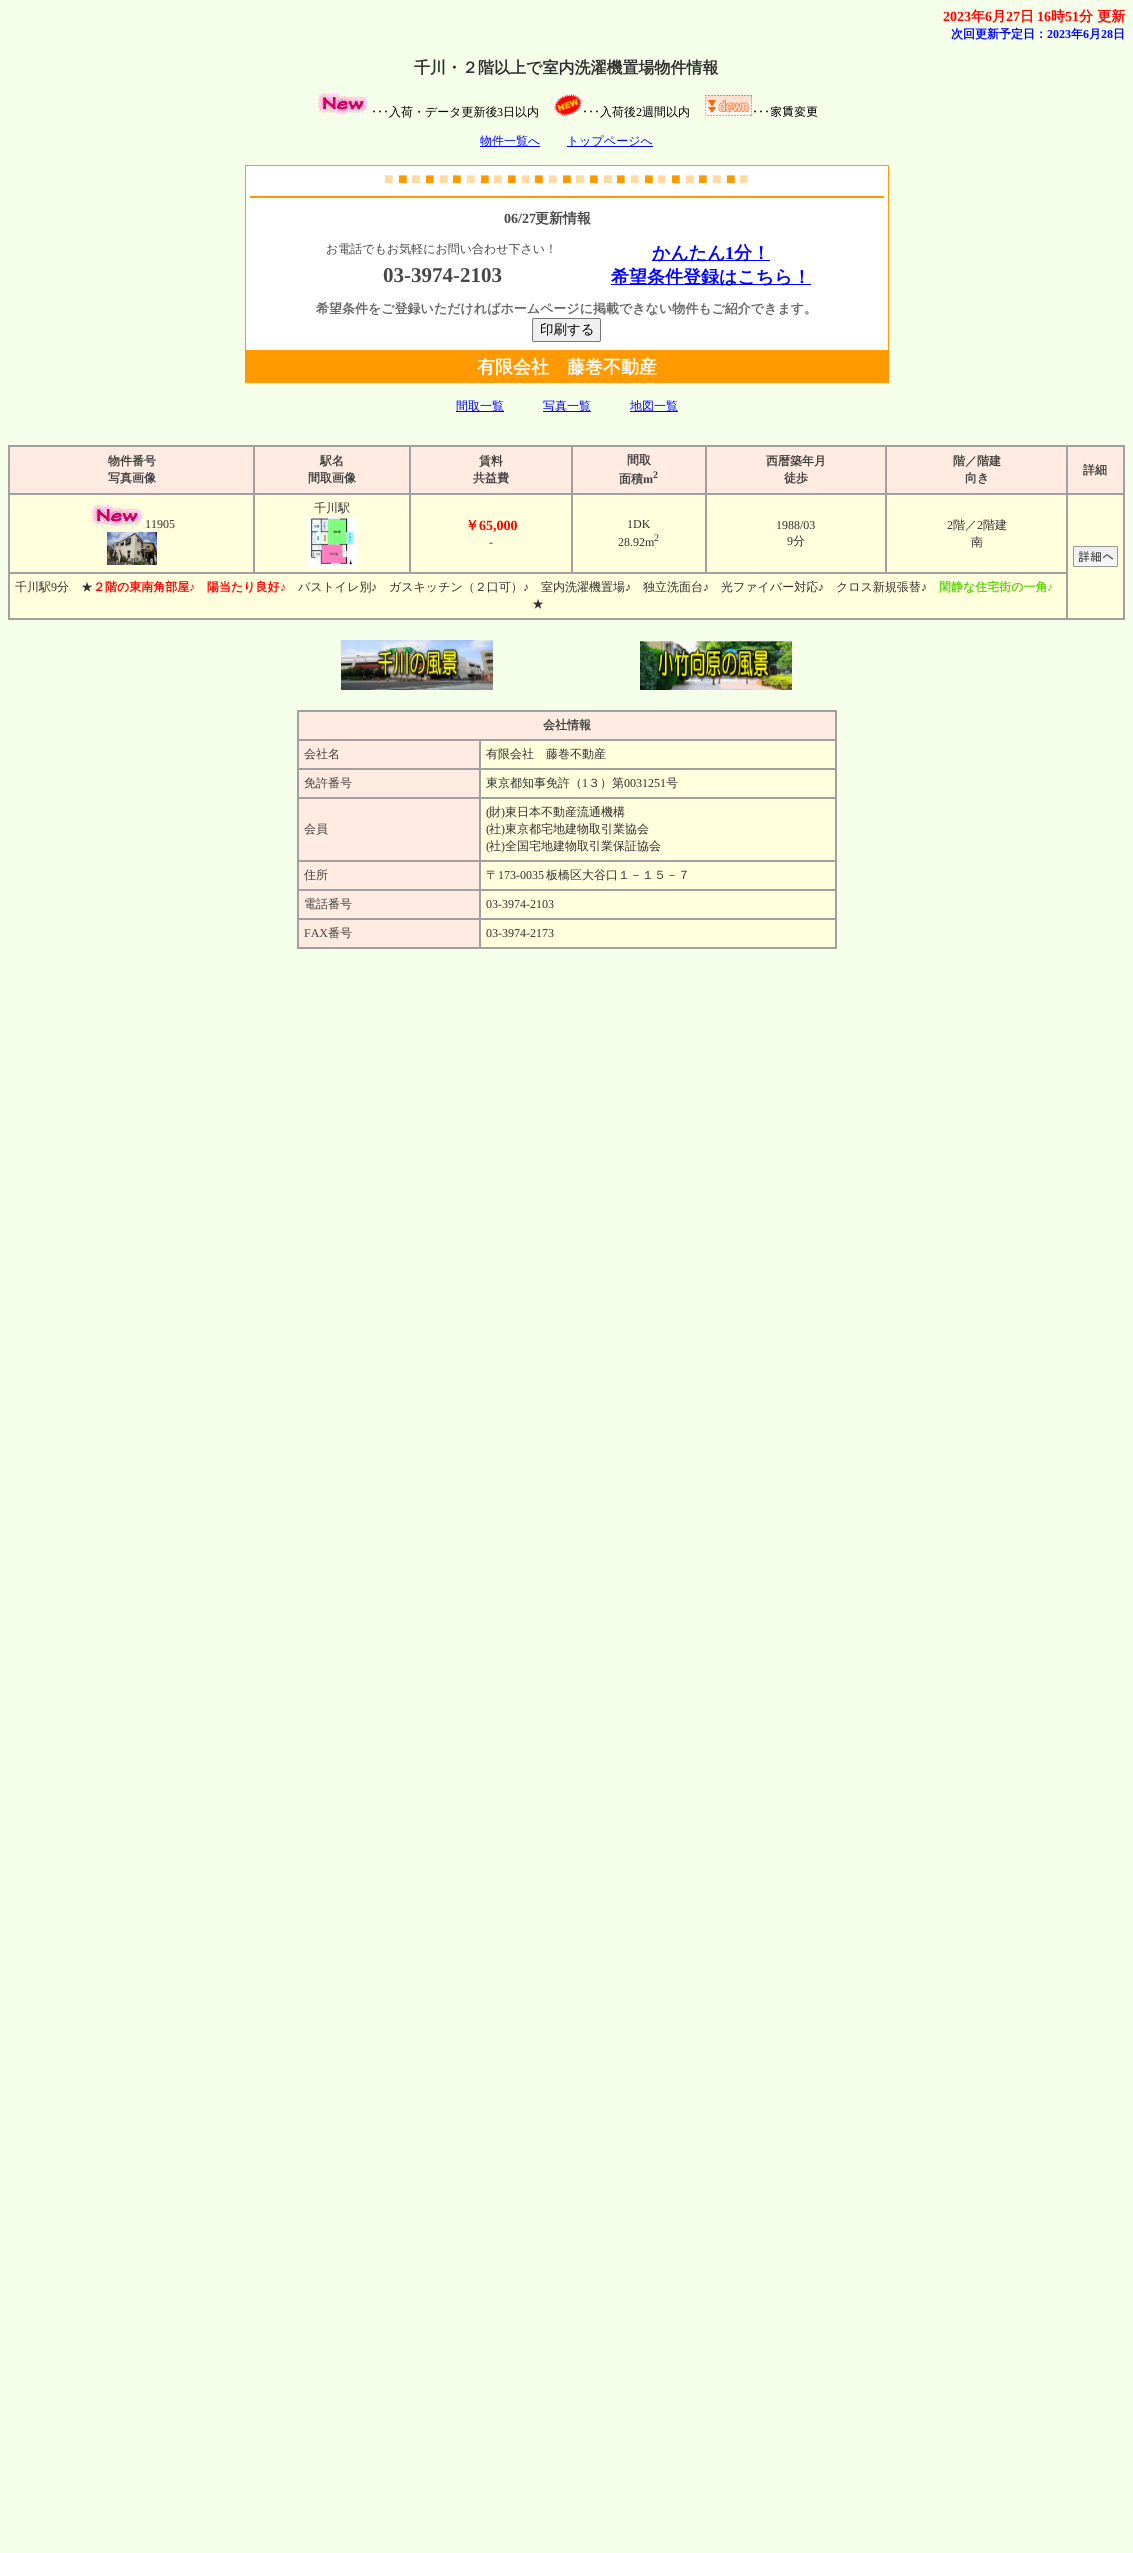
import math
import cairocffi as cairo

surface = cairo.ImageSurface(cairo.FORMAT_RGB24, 1133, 2553)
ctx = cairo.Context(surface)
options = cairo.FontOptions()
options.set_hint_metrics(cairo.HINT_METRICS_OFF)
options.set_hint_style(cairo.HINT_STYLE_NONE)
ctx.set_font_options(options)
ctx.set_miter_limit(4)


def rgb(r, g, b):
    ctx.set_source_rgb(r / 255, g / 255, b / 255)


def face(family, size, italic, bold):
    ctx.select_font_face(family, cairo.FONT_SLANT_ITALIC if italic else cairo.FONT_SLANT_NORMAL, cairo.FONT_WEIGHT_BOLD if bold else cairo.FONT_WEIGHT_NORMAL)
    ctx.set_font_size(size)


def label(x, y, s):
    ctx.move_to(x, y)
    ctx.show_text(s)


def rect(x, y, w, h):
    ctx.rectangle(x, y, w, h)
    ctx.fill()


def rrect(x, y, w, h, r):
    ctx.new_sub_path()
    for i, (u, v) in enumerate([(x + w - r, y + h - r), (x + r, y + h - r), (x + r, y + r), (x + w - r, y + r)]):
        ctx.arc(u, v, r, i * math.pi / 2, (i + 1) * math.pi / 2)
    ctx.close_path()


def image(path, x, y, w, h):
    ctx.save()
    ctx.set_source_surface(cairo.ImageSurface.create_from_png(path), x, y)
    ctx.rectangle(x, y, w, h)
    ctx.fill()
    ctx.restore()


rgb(244, 254, 233)
ctx.paint()
face('Liberation Serif', 14, 0, 1)
rgb(255, 0, 0)
label(943, 21, '2023')
face('WenQuanYi Zen Hei', 14, 0, 1)
label(971, 21, '年')
face('Liberation Serif', 14, 0, 1)
label(985, 21, '6')
face('WenQuanYi Zen Hei', 14, 0, 1)
label(992, 21, '月')
face('Liberation Serif', 14, 0, 1)
label(1006, 21, '27')
face('WenQuanYi Zen Hei', 14, 0, 1)
label(1020, 21, '日')
face('Liberation Serif', 14, 0, 1)
label(1037, 21, '16')
face('WenQuanYi Zen Hei', 14, 0, 1)
label(1051, 21, '時')
face('Liberation Serif', 14, 0, 1)
label(1065, 21, '51')
face('WenQuanYi Zen Hei', 14, 0, 1)
label(1079, 21, '分 更新')
face('WenQuanYi Zen Hei', 12, 0, 1)
rgb(0, 0, 255)
label(951, 38, '次回更新予定日：')
face('Liberation Serif', 12, 0, 1)
label(1047, 38, '2023')
face('WenQuanYi Zen Hei', 12, 0, 1)
label(1071, 38, '年')
face('Liberation Serif', 12, 0, 1)
label(1083, 38, '6')
face('WenQuanYi Zen Hei', 12, 0, 1)
label(1089, 38, '月')
face('Liberation Serif', 12, 0, 1)
label(1101, 38, '28')
face('WenQuanYi Zen Hei', 12, 0, 1)
label(1113, 38, '日')
face('WenQuanYi Zen Hei', 16, 0, 1)
rgb(47, 47, 47)
label(414, 73, '千川・２階以上で室内洗濯機置場物件情報')
image('image0.png', 318, 93, 50, 22)
face('IPAPGothic', 12, 0, 0)
rgb(0, 0, 0)
label(371, 116, '･･･')
face('WenQuanYi Zen Hei Medium', 12, 0, 0)
label(389, 116, '入荷・データ更新後')
face('Liberation Serif', 12, 0, 0)
label(497, 116, '3')
face('WenQuanYi Zen Hei Medium', 12, 0, 0)
label(503, 116, '日以内')
image('image1.png', 554, 94, 28, 22)
face('IPAPGothic', 12, 0, 0)
label(582, 116, '･･･')
face('WenQuanYi Zen Hei Medium', 12, 0, 0)
label(600, 116, '入荷後')
face('Liberation Serif', 12, 0, 0)
label(636, 116, '2')
face('WenQuanYi Zen Hei Medium', 12, 0, 0)
label(642, 116, '週間以内')
image('image2.png', 705, 95, 47, 21)
face('IPAPGothic', 12, 0, 0)
label(752, 116, '･･･家賃変更')
rgb(0, 0, 255)
rect(480, 146, 60, 1)
face('WenQuanYi Zen Hei Medium', 12, 0, 0)
label(480, 145, '物件一覧へ')
rect(567, 146, 86, 1)
label(567, 145, 'トップページへ')
rgb(255, 255, 255)
ctx.rectangle(245.5, 165.5, 643, 185)
ctx.fill_preserve()
rgb(255, 153, 0)
ctx.set_line_width(1)
ctx.stroke()
face('Liberation Serif', 16, 0, 0)
rgb(255, 218, 162)
label(384, 184, '■')
rgb(255, 153, 0)
label(398, 184, '■')
rgb(255, 218, 162)
label(411, 184, '■')
rgb(255, 153, 0)
label(425, 184, '■')
rgb(255, 218, 162)
label(439, 184, '■')
rgb(255, 153, 0)
label(452, 184, '■')
rgb(255, 218, 162)
label(466, 184, '■')
rgb(255, 153, 0)
label(480, 184, '■')
rgb(255, 218, 162)
label(493, 184, '■')
rgb(255, 153, 0)
label(507, 184, '■')
rgb(255, 218, 162)
label(521, 184, '■')
rgb(255, 153, 0)
label(534, 184, '■')
rgb(255, 218, 162)
label(548, 184, '■')
rgb(255, 153, 0)
label(562, 184, '■')
rgb(255, 218, 162)
label(575, 184, '■')
rgb(255, 153, 0)
label(589, 184, '■')
rgb(255, 218, 162)
label(603, 184, '■')
rgb(255, 153, 0)
label(616, 184, '■')
rgb(255, 218, 162)
label(630, 184, '■')
rgb(255, 153, 0)
label(644, 184, '■')
rgb(255, 218, 162)
label(657, 184, '■')
rgb(255, 153, 0)
label(671, 184, '■')
rgb(255, 218, 162)
label(685, 184, '■')
rgb(255, 153, 0)
label(698, 184, '■')
rgb(255, 218, 162)
label(712, 184, '■')
rgb(255, 153, 0)
label(726, 184, '■')
rgb(255, 218, 162)
label(739, 184, '■')
rgb(255, 153, 0)
rect(250, 196, 634, 2)
face('Liberation Serif', 14, 0, 1)
rgb(70, 70, 70)
label(504, 223, '06/27')
face('WenQuanYi Zen Hei', 14, 0, 1)
label(535, 223, '更新情報')
face('WenQuanYi Zen Hei Medium', 12, 0, 0)
label(326, 253, 'お電話でもお気軽にお問い合わせ下さい！')
rgb(0, 0, 255)
rect(652, 260, 118, 1)
face('WenQuanYi Zen Hei', 18, 0, 1)
label(652, 259, 'かんたん')
face('Liberation Serif', 18, 0, 1)
label(725, 259, '1')
face('WenQuanYi Zen Hei', 18, 0, 1)
label(734, 259, '分！')
rect(611, 284, 200, 1)
label(611, 283, '希望条件登録はこちら！')
face('Liberation Serif', 21, 0, 1)
rgb(70, 70, 70)
label(383, 282, '03-3974-2103')
face('WenQuanYi Zen Hei', 13, 0, 1)
rgb(102, 102, 102)
label(316, 313, '希望条件をご登録いただければホームページに掲載できない物件もご紹介できます。')
rgb(239, 239, 239)
rrect(532.5, 318.5, 68, 23, 1.5)
ctx.fill_preserve()
rgb(118, 118, 118)
ctx.stroke()
face('WenQuanYi Zen Hei Medium', 13.5, 0, 0)
rgb(0, 0, 0)
label(540, 334, '印刷する')
rgb(255, 153, 0)
rect(245, 351, 644, 32)
face('WenQuanYi Zen Hei', 18, 0, 1)
rgb(255, 255, 255)
label(477, 373, '有限会社　藤巻不動産')
rgb(0, 0, 255)
rect(456, 411, 48, 1)
face('WenQuanYi Zen Hei Medium', 12, 0, 0)
label(456, 410, '間取一覧')
rect(543, 411, 48, 1)
label(543, 410, '写真一覧')
rect(630, 411, 48, 1)
label(630, 410, '地図一覧')
ctx.rectangle(8.5, 445.5, 1116, 174)
rgb(160, 160, 160)
ctx.stroke()
rgb(255, 235, 225)
ctx.rectangle(9.5, 446.5, 244, 47)
ctx.fill_preserve()
rgb(160, 160, 160)
ctx.stroke()
face('WenQuanYi Zen Hei', 12, 0, 1)
rgb(63, 63, 63)
label(108, 465, '物件番号')
label(108, 482, '写真画像')
rgb(255, 235, 225)
ctx.rectangle(254.5, 446.5, 155, 47)
ctx.fill_preserve()
rgb(160, 160, 160)
ctx.stroke()
rgb(63, 63, 63)
label(320, 465, '駅名')
label(308, 482, '間取画像')
rgb(255, 235, 225)
ctx.rectangle(410.5, 446.5, 161, 47)
ctx.fill_preserve()
rgb(160, 160, 160)
ctx.stroke()
rgb(63, 63, 63)
label(479, 465, '賃料')
label(473, 482, '共益費')
rgb(255, 235, 225)
ctx.rectangle(572.5, 446.5, 133, 47)
ctx.fill_preserve()
rgb(160, 160, 160)
ctx.stroke()
rgb(63, 63, 63)
label(627, 464, '間取')
label(619, 483, '面積')
face('Liberation Serif', 12, 0, 1)
label(643, 483, 'm')
face('Liberation Serif', 10, 0, 1)
label(653, 478, '2')
rgb(255, 235, 225)
ctx.rectangle(706.5, 446.5, 179, 47)
ctx.fill_preserve()
rgb(160, 160, 160)
ctx.stroke()
face('WenQuanYi Zen Hei', 12, 0, 1)
rgb(63, 63, 63)
label(766, 465, '西暦築年月')
label(784, 482, '徒歩')
rgb(255, 235, 225)
ctx.rectangle(886.5, 446.5, 180, 47)
ctx.fill_preserve()
rgb(160, 160, 160)
ctx.stroke()
rgb(63, 63, 63)
label(953, 465, '階／階建')
label(965, 482, '向き')
rgb(255, 235, 225)
ctx.rectangle(1067.5, 446.5, 56, 47)
ctx.fill_preserve()
rgb(160, 160, 160)
ctx.stroke()
rgb(63, 63, 63)
label(1083, 474, '詳細')
rgb(255, 255, 221)
ctx.rectangle(254.5, 494.5, 155, 78)
ctx.fill_preserve()
rgb(160, 160, 160)
ctx.stroke()
face('WenQuanYi Zen Hei Medium', 12, 0, 0)
rgb(47, 47, 47)
label(314, 512, '千川駅')
image('image3.png', 307, 517, 50, 50)
rgb(255, 255, 221)
ctx.rectangle(1067.5, 494.5, 56, 124)
ctx.fill_preserve()
rgb(160, 160, 160)
ctx.stroke()
image('image4.png', 1073, 546, 45, 21)
rgb(255, 255, 221)
ctx.rectangle(9.5, 494.5, 244, 78)
ctx.fill_preserve()
rgb(160, 160, 160)
ctx.stroke()
image('image5.png', 92, 505, 50, 22)
face('Liberation Serif', 12, 0, 0)
rgb(47, 47, 47)
label(145, 528, '11905')
image('image6.png', 107, 532, 50, 33)
rgb(255, 255, 221)
ctx.rectangle(410.5, 494.5, 161, 78)
ctx.fill_preserve()
rgb(160, 160, 160)
ctx.stroke()
face('WenQuanYi Zen Hei', 14, 0, 1)
rgb(255, 0, 0)
label(465, 530, '￥')
face('Liberation Serif', 14, 0, 1)
label(479, 530, '65,000')
face('Liberation Serif', 12, 0, 0)
rgb(47, 47, 47)
label(489, 546, '-')
rgb(255, 255, 221)
ctx.rectangle(572.5, 494.5, 133, 78)
ctx.fill_preserve()
rgb(160, 160, 160)
ctx.stroke()
rgb(47, 47, 47)
label(627, 528, '1DK')
label(618, 546, '28.92m')
face('Liberation Serif', 10, 0, 0)
label(654, 541, '2')
rgb(255, 255, 221)
ctx.rectangle(706.5, 494.5, 179, 78)
ctx.fill_preserve()
rgb(160, 160, 160)
ctx.stroke()
face('Liberation Serif', 12, 0, 0)
rgb(47, 47, 47)
label(776, 529, '1988/03')
label(787, 545, '9')
face('WenQuanYi Zen Hei Medium', 12, 0, 0)
label(793, 545, '分')
rgb(255, 255, 221)
ctx.rectangle(886.5, 494.5, 180, 78)
ctx.fill_preserve()
rgb(160, 160, 160)
ctx.stroke()
face('Liberation Serif', 12, 0, 0)
rgb(47, 47, 47)
label(947, 529, '2')
face('WenQuanYi Zen Hei Medium', 12, 0, 0)
label(953, 529, '階／')
face('Liberation Serif', 12, 0, 0)
label(977, 529, '2')
face('WenQuanYi Zen Hei Medium', 12, 0, 0)
label(983, 529, '階建')
label(971, 546, '南')
rgb(255, 255, 221)
ctx.rectangle(9.5, 573.5, 1057, 45)
ctx.fill_preserve()
rgb(160, 160, 160)
ctx.stroke()
rgb(47, 47, 47)
label(15, 591, '千川駅')
face('Liberation Serif', 12, 0, 0)
label(51, 591, '9')
face('WenQuanYi Zen Hei Medium', 12, 0, 0)
label(57, 591, '分　★')
face('WenQuanYi Zen Hei', 12, 0, 1)
rgb(255, 0, 0)
label(93, 591, '２階の東南角部屋')
face('Liberation Serif', 12, 0, 1)
label(189, 591, '♪')
face('WenQuanYi Zen Hei', 12, 0, 1)
label(207, 591, '陽当たり良好')
face('Liberation Serif', 12, 0, 1)
label(280, 591, '♪')
face('WenQuanYi Zen Hei Medium', 12, 0, 0)
rgb(47, 47, 47)
label(298, 591, 'バストイレ別')
face('Liberation Serif', 12, 0, 0)
label(371, 591, '♪')
face('WenQuanYi Zen Hei Medium', 12, 0, 0)
label(389, 591, 'ガスキッチン（２口可）')
face('Liberation Serif', 12, 0, 0)
label(523, 591, '♪')
face('WenQuanYi Zen Hei Medium', 12, 0, 0)
label(541, 591, '室内洗濯機置場')
face('Liberation Serif', 12, 0, 0)
label(625, 591, '♪')
face('WenQuanYi Zen Hei Medium', 12, 0, 0)
label(643, 591, '独立洗面台')
face('Liberation Serif', 12, 0, 0)
label(703, 591, '♪')
face('WenQuanYi Zen Hei Medium', 12, 0, 0)
label(721, 591, '光ファイバー対応')
face('Liberation Serif', 12, 0, 0)
label(818, 591, '♪')
face('WenQuanYi Zen Hei Medium', 12, 0, 0)
label(836, 591, 'クロス新規張替')
face('Liberation Serif', 12, 0, 0)
label(921, 591, '♪')
face('WenQuanYi Zen Hei', 12, 0, 1)
rgb(94, 210, 15)
label(939, 591, '閑静な住宅街の一角')
face('Liberation Serif', 12, 0, 1)
label(1047, 591, '♪')
face('WenQuanYi Zen Hei Medium', 12, 0, 0)
rgb(47, 47, 47)
label(532, 608, '★')
image('image7.png', 341, 640, 152, 50)
image('image8.png', 640, 641, 152, 49)
ctx.rectangle(297.5, 710.5, 539, 238)
rgb(160, 160, 160)
ctx.stroke()
rgb(255, 235, 225)
ctx.rectangle(298.5, 711.5, 537, 28)
ctx.fill_preserve()
rgb(160, 160, 160)
ctx.stroke()
face('WenQuanYi Zen Hei', 12, 0, 1)
rgb(63, 63, 63)
label(543, 729, '会社情報')
rgb(255, 235, 225)
ctx.rectangle(298.5, 740.5, 181, 28)
ctx.fill_preserve()
rgb(160, 160, 160)
ctx.stroke()
face('WenQuanYi Zen Hei Medium', 12, 0, 0)
rgb(63, 63, 63)
label(304, 758, '会社名')
rgb(255, 255, 221)
ctx.rectangle(480.5, 740.5, 355, 28)
ctx.fill_preserve()
rgb(160, 160, 160)
ctx.stroke()
rgb(47, 47, 47)
label(486, 758, '有限会社　藤巻不動産')
rgb(255, 235, 225)
ctx.rectangle(298.5, 769.5, 181, 28)
ctx.fill_preserve()
rgb(160, 160, 160)
ctx.stroke()
rgb(63, 63, 63)
label(304, 787, '免許番号')
rgb(255, 255, 221)
ctx.rectangle(480.5, 769.5, 355, 28)
ctx.fill_preserve()
rgb(160, 160, 160)
ctx.stroke()
rgb(47, 47, 47)
label(486, 787, '東京都知事免許（')
face('Liberation Serif', 12, 0, 0)
label(582, 787, '1')
face('WenQuanYi Zen Hei Medium', 12, 0, 0)
label(588, 787, '３）第')
face('Liberation Serif', 12, 0, 0)
label(624, 787, '0031251')
face('WenQuanYi Zen Hei Medium', 12, 0, 0)
label(666, 787, '号')
rgb(255, 235, 225)
ctx.rectangle(298.5, 798.5, 181, 62)
ctx.fill_preserve()
rgb(160, 160, 160)
ctx.stroke()
rgb(63, 63, 63)
label(304, 833, '会員')
rgb(255, 255, 221)
ctx.rectangle(480.5, 798.5, 355, 62)
ctx.fill_preserve()
rgb(160, 160, 160)
ctx.stroke()
face('Liberation Serif', 12, 0, 0)
rgb(47, 47, 47)
label(486, 816, '(')
face('WenQuanYi Zen Hei Medium', 12, 0, 0)
label(489, 816, '財')
face('Liberation Serif', 12, 0, 0)
label(501, 816, ')')
face('WenQuanYi Zen Hei Medium', 12, 0, 0)
label(505, 816, '東日本不動産流通機構')
face('Liberation Serif', 12, 0, 0)
label(486, 833, '(')
face('WenQuanYi Zen Hei Medium', 12, 0, 0)
label(489, 833, '社')
face('Liberation Serif', 12, 0, 0)
label(501, 833, ')')
face('WenQuanYi Zen Hei Medium', 12, 0, 0)
label(505, 833, '東京都宅地建物取引業協会')
face('Liberation Serif', 12, 0, 0)
label(486, 850, '(')
face('WenQuanYi Zen Hei Medium', 12, 0, 0)
label(489, 850, '社')
face('Liberation Serif', 12, 0, 0)
label(501, 850, ')')
face('WenQuanYi Zen Hei Medium', 12, 0, 0)
label(505, 850, '全国宅地建物取引業保証協会')
rgb(255, 235, 225)
ctx.rectangle(298.5, 861.5, 181, 28)
ctx.fill_preserve()
rgb(160, 160, 160)
ctx.stroke()
rgb(63, 63, 63)
label(304, 879, '住所')
rgb(255, 255, 221)
ctx.rectangle(480.5, 861.5, 355, 28)
ctx.fill_preserve()
rgb(160, 160, 160)
ctx.stroke()
rgb(47, 47, 47)
label(486, 879, '〒')
face('Liberation Serif', 12, 0, 0)
label(498, 879, '173-0035')
face('WenQuanYi Zen Hei Medium', 12, 0, 0)
label(546, 879, '板橋区大谷口１－１５－７')
rgb(255, 235, 225)
ctx.rectangle(298.5, 890.5, 181, 28)
ctx.fill_preserve()
rgb(160, 160, 160)
ctx.stroke()
rgb(63, 63, 63)
label(304, 908, '電話番号')
rgb(255, 255, 221)
ctx.rectangle(480.5, 890.5, 355, 28)
ctx.fill_preserve()
rgb(160, 160, 160)
ctx.stroke()
face('Liberation Serif', 12, 0, 0)
rgb(47, 47, 47)
label(486, 908, '03-3974-2103')
rgb(255, 235, 225)
ctx.rectangle(298.5, 919.5, 181, 28)
ctx.fill_preserve()
rgb(160, 160, 160)
ctx.stroke()
rgb(63, 63, 63)
label(304, 937, 'FAX')
face('WenQuanYi Zen Hei Medium', 12, 0, 0)
label(328, 937, '番号')
rgb(255, 255, 221)
ctx.rectangle(480.5, 919.5, 355, 28)
ctx.fill_preserve()
rgb(160, 160, 160)
ctx.stroke()
face('Liberation Serif', 12, 0, 0)
rgb(47, 47, 47)
label(486, 937, '03-3974-2173')
surface.write_to_png('render.png')
